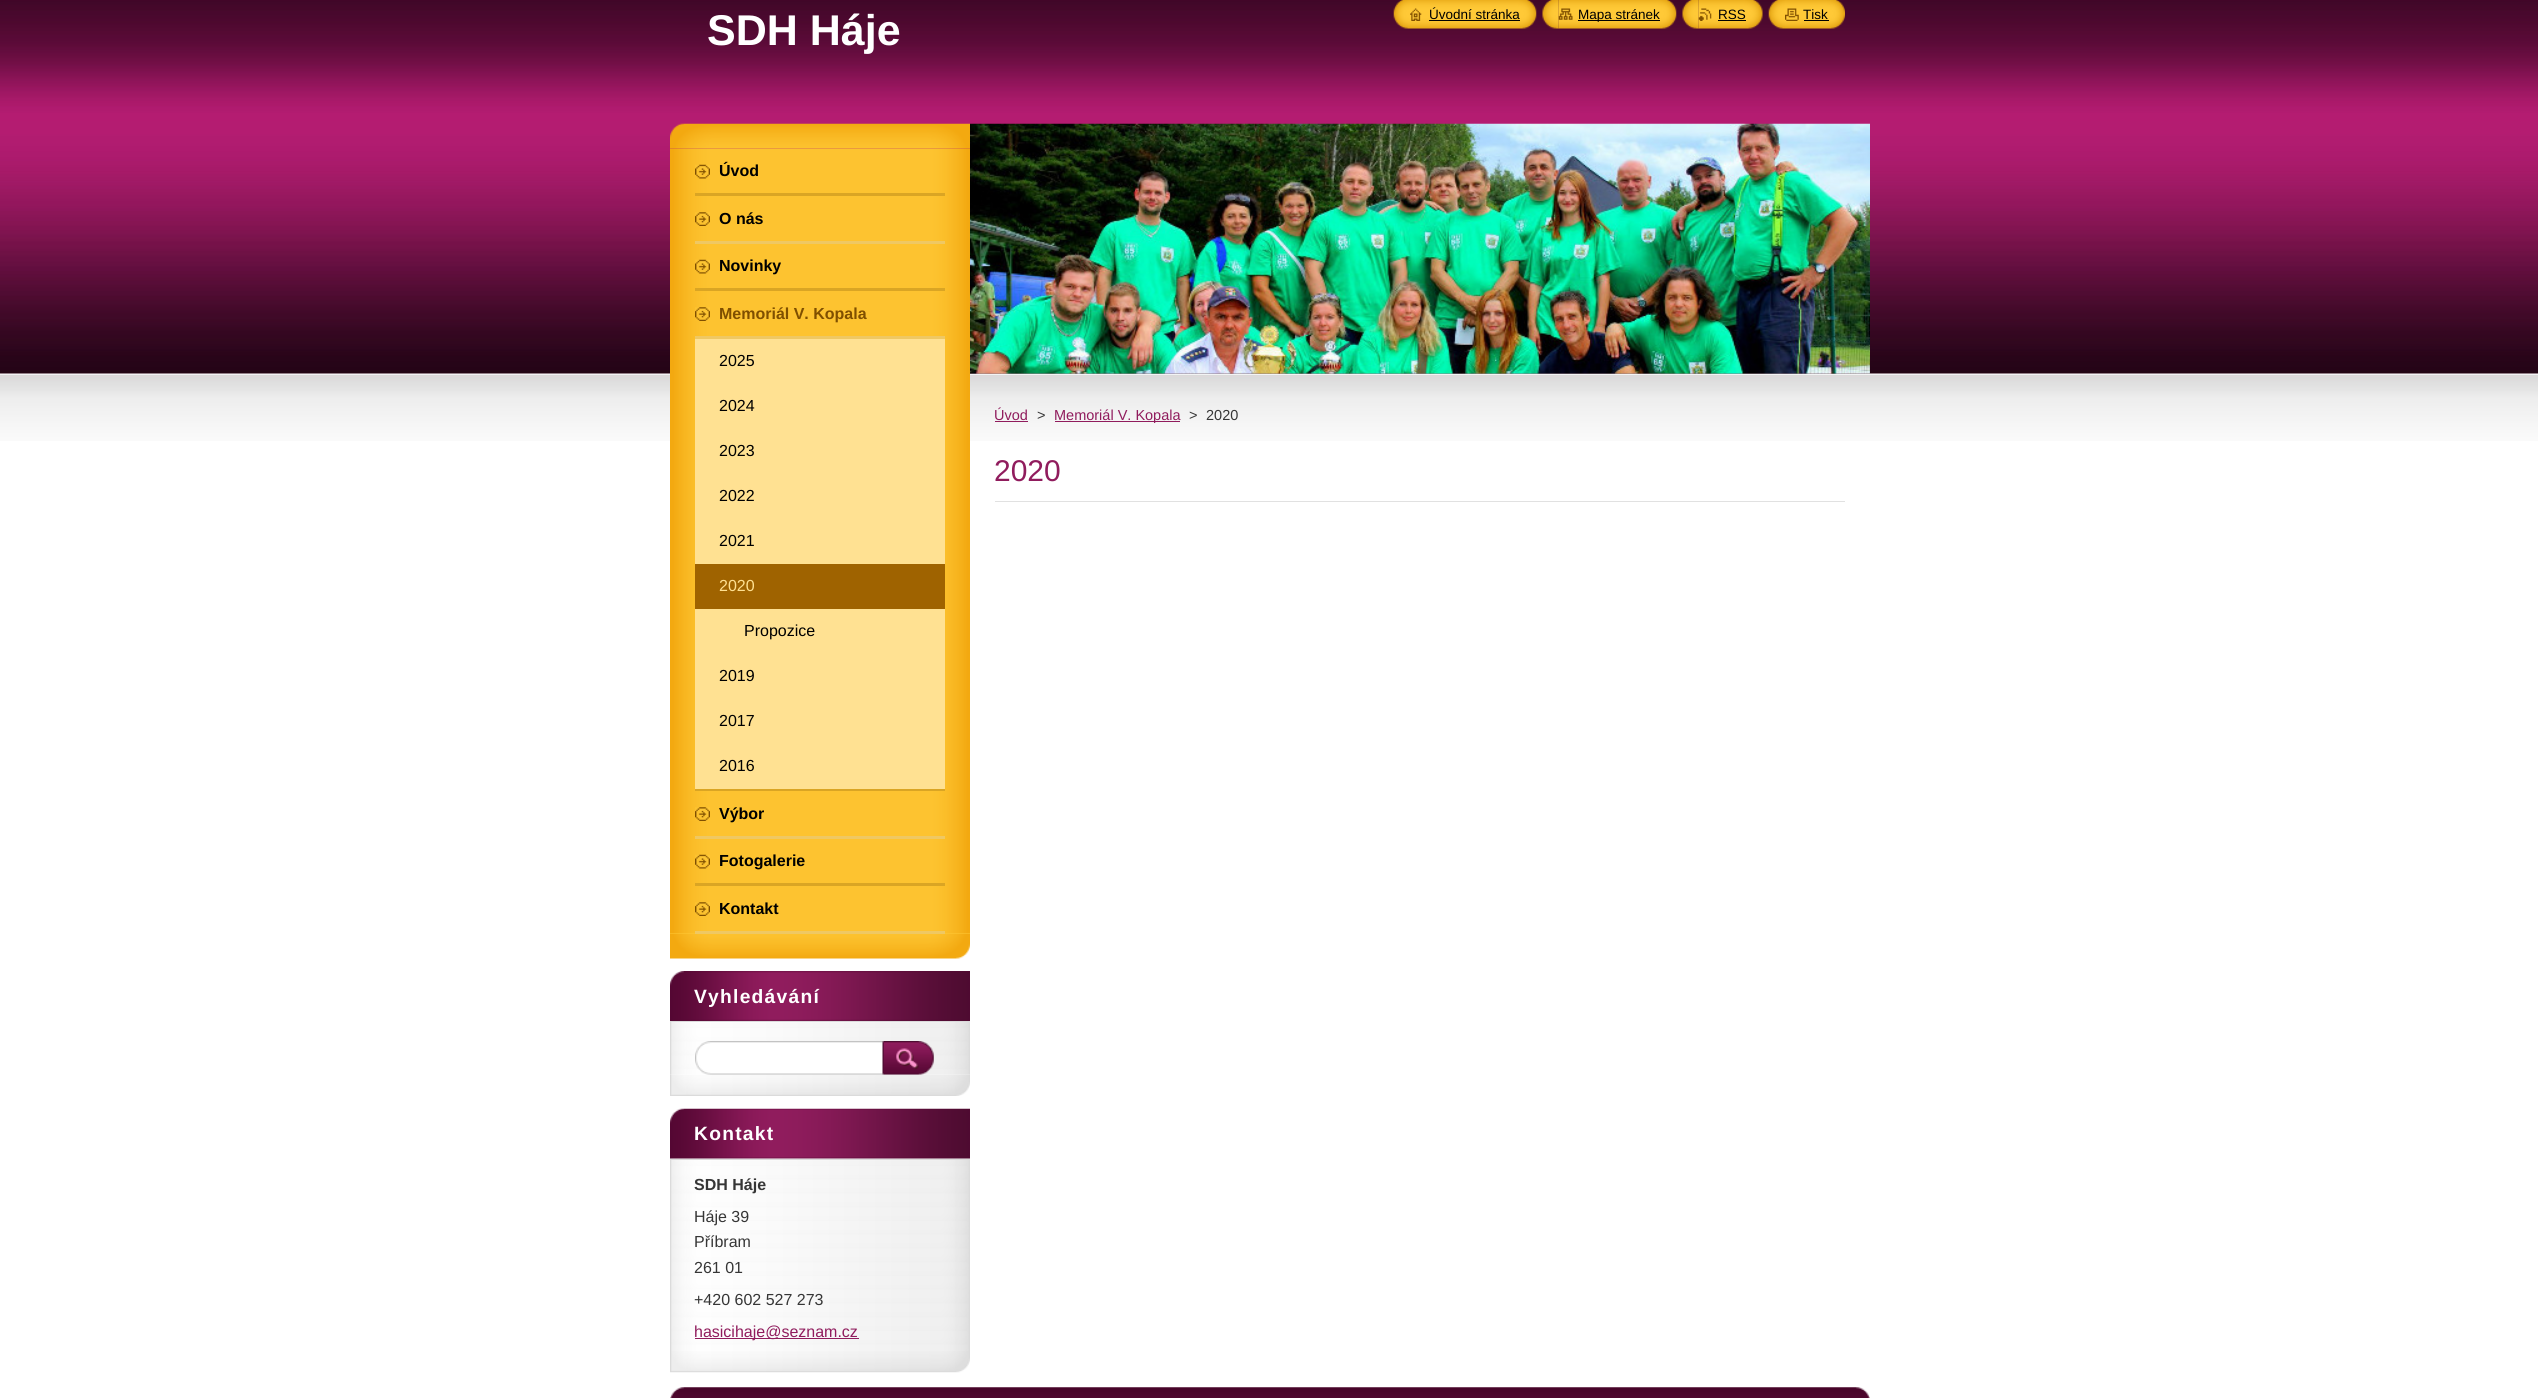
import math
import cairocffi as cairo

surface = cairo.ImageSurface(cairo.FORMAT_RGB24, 2538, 1398)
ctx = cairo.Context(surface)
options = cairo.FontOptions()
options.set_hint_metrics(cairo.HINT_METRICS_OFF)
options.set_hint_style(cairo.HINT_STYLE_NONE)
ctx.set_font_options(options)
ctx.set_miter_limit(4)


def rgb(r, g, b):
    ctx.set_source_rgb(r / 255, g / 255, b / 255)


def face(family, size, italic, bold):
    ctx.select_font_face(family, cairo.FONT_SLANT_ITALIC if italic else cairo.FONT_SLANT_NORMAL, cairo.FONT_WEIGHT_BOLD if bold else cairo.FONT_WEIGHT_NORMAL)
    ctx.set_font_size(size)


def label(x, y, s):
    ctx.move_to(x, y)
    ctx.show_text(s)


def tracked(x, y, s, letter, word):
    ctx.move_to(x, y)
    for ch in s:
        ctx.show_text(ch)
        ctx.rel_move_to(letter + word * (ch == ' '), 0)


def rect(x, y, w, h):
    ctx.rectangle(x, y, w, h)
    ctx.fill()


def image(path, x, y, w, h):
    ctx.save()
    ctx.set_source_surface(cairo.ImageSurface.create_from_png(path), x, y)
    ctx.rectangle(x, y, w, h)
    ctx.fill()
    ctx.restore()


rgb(255, 255, 255)
ctx.paint()
image('image0.png', 0, 0, 2538, 441)
face('Liberation Sans', 43, 0, 1)
rgb(255, 255, 255)
label(707, 45, 'SDH Háje')
image('image1.png', 1393, 0, 17, 29)
image('image2.png', 1410, 0, 127, 29)
image('image3.png', 1410, 8, 12, 13)
face('Liberation Sans', 13.5, 0, 0)
rgb(0, 0, 0)
label(1429, 19, 'Úvodní stránka')
rect(1429, 20, 91, 1)
image('image4.png', 1542, 0, 17, 29)
image('image5.png', 1558, 0, 119, 29)
image('image6.png', 1558, 8, 15, 12)
rect(1578, 20, 82, 1)
label(1578, 19, 'Mapa stránek')
image('image7.png', 1682, 0, 17, 29)
image('image8.png', 1698, 0, 65, 29)
image('image9.png', 1698, 8, 14, 13)
label(1718, 19, 'RSS')
rect(1718, 20, 28, 1)
image('image10.png', 1768, 0, 17, 29)
image('image11.png', 1785, 0, 60, 29)
image('image12.png', 1785, 8, 14, 13)
label(1803, 19, 'Tisk')
rect(1804, 20, 25, 1)
image('image13.png', 670, 123, 300, 26)
image('image14.png', 670, 934, 300, 25)
rgb(255, 201, 55)
rect(670, 933, 300, 1)
image('image15.png', 670, 148, 300, 786)
rgb(218, 165, 36)
rect(695, 193, 250, 3)
image('image16.png', 695, 164, 15, 15)
face('Liberation Sans', 16, 0, 1)
rgb(0, 0, 0)
label(719, 176, 'Úvod')
rgb(239, 200, 99)
rect(695, 241, 250, 3)
image('image17.png', 695, 212, 15, 14)
rgb(0, 0, 0)
label(719, 224, 'O nás')
rgb(218, 165, 36)
rect(695, 288, 250, 3)
image('image16.png', 695, 259, 15, 15)
rgb(0, 0, 0)
label(719, 271, 'Novinky')
rgb(218, 165, 36)
rect(695, 789, 250, 2)
image('image17.png', 695, 307, 15, 14)
rgb(127, 79, 0)
label(719, 319, 'Memoriál V. Kopala')
rgb(239, 200, 99)
rect(695, 336, 250, 3)
rgb(255, 225, 146)
rect(695, 339, 250, 225)
face('Liberation Sans', 16, 0, 0)
rgb(0, 0, 0)
label(719, 366, '2025')
label(719, 411, '2024')
label(719, 456, '2023')
label(719, 501, '2022')
label(719, 546, '2021')
rgb(159, 99, 0)
rect(695, 564, 250, 45)
rgb(255, 225, 146)
label(719, 591, '2020')
rect(695, 609, 250, 180)
rgb(0, 0, 0)
label(744, 636, 'Propozice')
label(719, 681, '2019')
label(719, 726, '2017')
label(719, 771, '2016')
rgb(239, 200, 99)
rect(695, 836, 250, 3)
image('image17.png', 695, 807, 15, 14)
face('Liberation Sans', 16, 0, 1)
rgb(0, 0, 0)
label(719, 819, 'Výbor')
rgb(218, 165, 36)
rect(695, 883, 250, 3)
image('image16.png', 695, 854, 15, 15)
rgb(0, 0, 0)
label(719, 866, 'Fotogalerie')
rgb(239, 200, 99)
rect(695, 931, 250, 3)
image('image17.png', 695, 902, 15, 14)
rgb(0, 0, 0)
label(719, 914, 'Kontakt')
image('image18.png', 670, 1074, 300, 22)
image('image19.png', 670, 971, 300, 50)
face('Liberation Sans', 19.25, 0, 1)
rgb(255, 255, 255)
tracked(694, 1003, 'Vyhledávání', 1.25, 0)
image('image20.png', 670, 1022, 300, 53)
rgb(219, 219, 219)
rect(670, 1021, 300, 1)
image('image21.png', 695, 1041, 189, 34)
image('image22.png', 882, 1041, 52, 34)
image('image23.png', 670, 1351, 300, 22)
image('image25.png', 670, 1158, 300, 193)
image('image24.png', 670, 1108, 300, 51)
rgb(255, 255, 255)
tracked(694, 1140, 'Kontakt', 1.25, 0)
rgb(219, 219, 219)
rect(670, 1159, 300, 1)
face('Liberation Sans', 16, 0, 1)
rgb(54, 54, 54)
label(694, 1190, 'SDH Háje')
face('Liberation Sans', 16, 0, 0)
label(694, 1222, 'Háje 39')
label(694, 1247, 'Příbram')
label(694, 1273, '261 01')
label(694, 1305, '+420 602 527 273')
rgb(144, 28, 93)
rect(695, 1338, 164, 1)
label(694, 1337, 'hasicihaje@seznam.cz')
image('image26.png', 970, 123, 900, 251)
face('Liberation Sans', 14.5, 0, 0)
label(994, 420, 'Úvod')
rect(995, 421, 33, 1)
rgb(54, 54, 54)
label(1037, 420, '>')
rgb(144, 28, 93)
rect(1055, 421, 125, 1)
label(1054, 420, 'Memoriál V. Kopala')
rgb(54, 54, 54)
label(1189, 420, '>')
label(1206, 420, '2020')
rgb(225, 225, 225)
rect(995, 501, 850, 1)
face('Liberation Sans', 30, 0, 0)
rgb(144, 28, 93)
label(994, 481, '2020')
image('image27.png', 670, 1387, 1200, 11)
surface.write_to_png('render.png')
